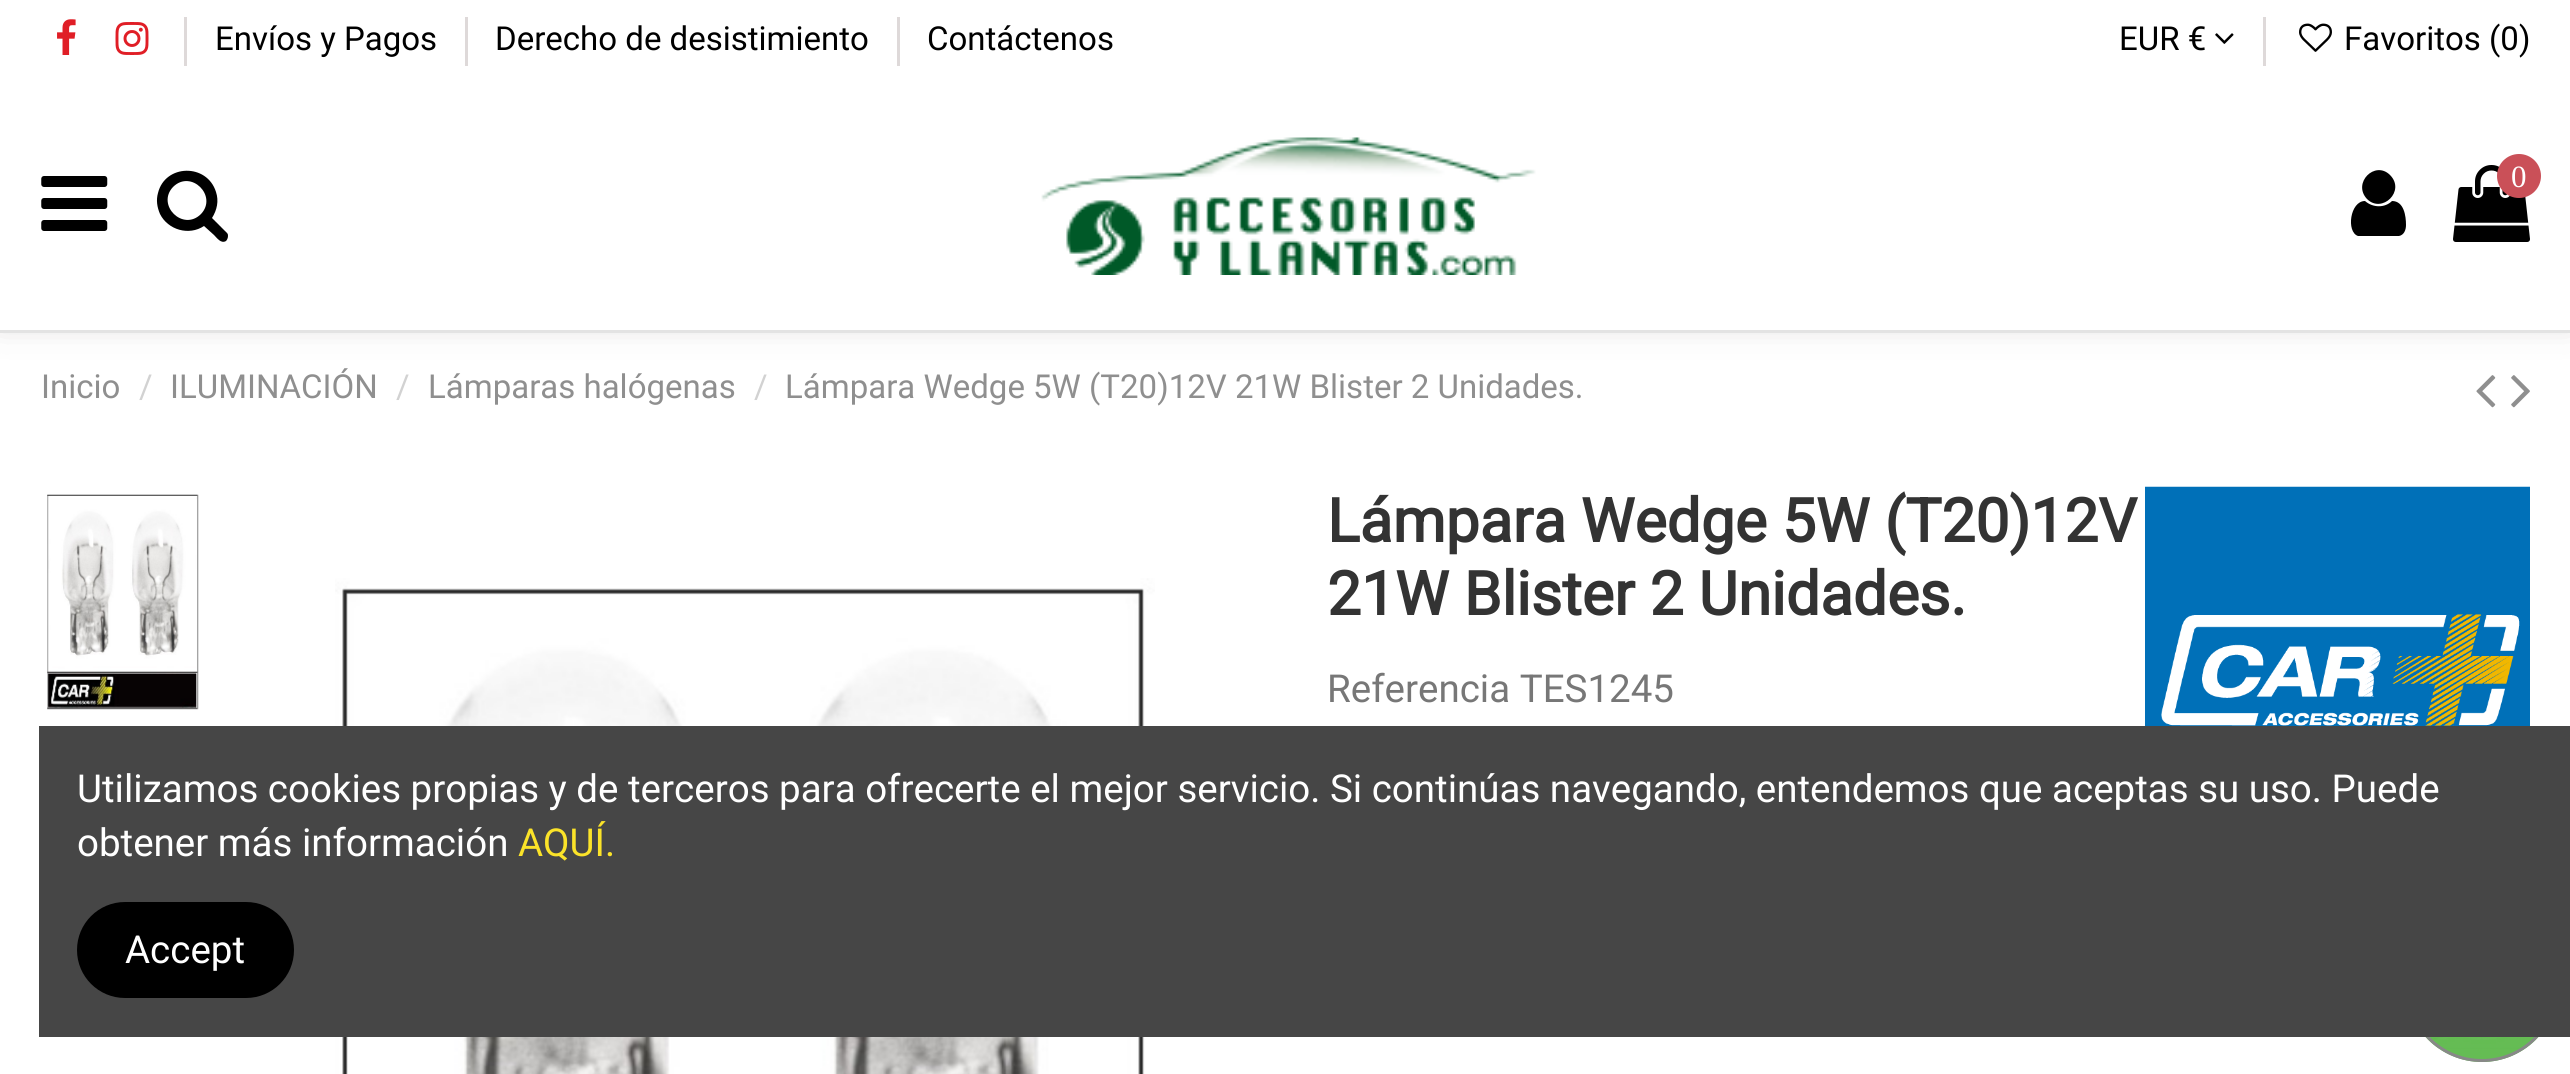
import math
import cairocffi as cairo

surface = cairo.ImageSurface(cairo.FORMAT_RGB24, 2570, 1074)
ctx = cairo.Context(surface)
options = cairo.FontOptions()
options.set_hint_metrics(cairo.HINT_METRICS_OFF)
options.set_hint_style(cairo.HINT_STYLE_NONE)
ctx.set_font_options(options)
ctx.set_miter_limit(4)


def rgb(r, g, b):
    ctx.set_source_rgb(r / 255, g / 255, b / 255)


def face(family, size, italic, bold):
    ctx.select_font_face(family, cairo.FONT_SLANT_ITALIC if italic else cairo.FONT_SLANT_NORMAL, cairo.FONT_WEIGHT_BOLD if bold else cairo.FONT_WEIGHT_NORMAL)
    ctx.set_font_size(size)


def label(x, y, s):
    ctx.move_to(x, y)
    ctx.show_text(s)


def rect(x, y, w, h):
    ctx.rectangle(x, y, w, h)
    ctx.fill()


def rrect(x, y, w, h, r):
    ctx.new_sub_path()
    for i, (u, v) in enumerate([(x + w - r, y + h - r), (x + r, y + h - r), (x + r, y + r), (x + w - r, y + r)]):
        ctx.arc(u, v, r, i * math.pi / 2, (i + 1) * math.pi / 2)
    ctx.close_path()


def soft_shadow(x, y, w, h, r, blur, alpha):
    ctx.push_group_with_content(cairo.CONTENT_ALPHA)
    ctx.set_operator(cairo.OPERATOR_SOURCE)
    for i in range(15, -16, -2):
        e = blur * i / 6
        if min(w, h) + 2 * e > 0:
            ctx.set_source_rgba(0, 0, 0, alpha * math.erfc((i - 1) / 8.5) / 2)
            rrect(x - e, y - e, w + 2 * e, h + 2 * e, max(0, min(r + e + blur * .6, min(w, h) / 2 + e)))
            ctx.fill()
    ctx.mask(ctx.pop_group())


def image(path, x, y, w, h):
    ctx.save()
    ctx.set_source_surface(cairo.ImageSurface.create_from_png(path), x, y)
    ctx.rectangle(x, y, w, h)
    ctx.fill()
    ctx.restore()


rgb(255, 255, 255)
ctx.paint()
rgb(61, 57, 57)
soft_shadow(0, -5, 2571, 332, 0, 15, 0.17)
rgb(255, 255, 255)
rect(0, 0, 2570, 330)
image('image0.png', 57, 19, 19, 36)
image('image1.png', 115, 22, 34, 33)
rgb(222, 217, 217)
rect(184, 17, 3, 49)
face('Roboto', 33, 0, 0)
rgb(0, 0, 0)
label(215, 50, 'Envíos y Pagos')
rgb(222, 217, 217)
rect(465, 17, 3, 49)
rgb(0, 0, 0)
label(495, 50, 'Derecho de desistimiento')
rgb(222, 217, 217)
rect(897, 17, 3, 49)
rgb(0, 0, 0)
label(927, 50, 'Contáctenos')
label(2119, 50, 'EUR €')
image('image2.png', 2215, 33, 19, 11)
rgb(222, 217, 217)
rect(2263, 17, 3, 49)
image('image3.png', 2299, 23, 33, 29)
rgb(0, 0, 0)
label(2344, 50, 'Favoritos (0)')
rgb(227, 227, 227)
rect(0, 330, 2570, 3)
image('image4.png', 41, 176, 67, 55)
rgb(0, 0, 0)
ctx.new_path()
ctx.move_to(201, 214)
ctx.curve_to(218, 196, 191, 169, 173, 187)
ctx.curve_to(156, 205, 183, 232, 201, 214)
ctx.close_path()
ctx.move_to(228, 236)
ctx.curve_to(228, 238, 227, 240, 226, 241)
ctx.curve_to(221, 244, 217, 238, 214, 235)
ctx.line_to(204, 226)
ctx.curve_to(189, 236, 168, 230, 160, 214)
ctx.curve_to(157, 207, 156, 200, 158, 193)
ctx.curve_to(165, 164, 207, 163, 216, 192)
ctx.curve_to(219, 201, 217, 210, 212, 218)
ctx.line_to(227, 233)
ctx.curve_to(228, 234, 228, 235, 228, 236)
ctx.close_path()
ctx.fill()
image('image5.png', 1041, 137, 495, 138)
ctx.new_path()
ctx.move_to(2406, 225)
ctx.curve_to(2406, 230, 2404, 235, 2399, 236)
ctx.line_to(2367, 236)
ctx.line_to(2358, 236)
ctx.curve_to(2346, 232, 2350, 201, 2365, 201)
ctx.curve_to(2373, 208, 2385, 208, 2392, 201)
ctx.curve_to(2404, 201, 2406, 216, 2406, 225)
ctx.close_path()
ctx.move_to(2390, 175)
ctx.curve_to(2406, 191, 2382, 214, 2367, 199)
ctx.curve_to(2352, 183, 2375, 160, 2390, 175)
ctx.close_path()
ctx.fill()
image('image6.png', 2453, 165, 77, 77)
rgb(202, 80, 88)
ctx.arc(2519, 176, 22, 0, 2 * math.pi)
ctx.fill()
face('Liberation Serif', 31, 0, 0)
rgb(255, 255, 255)
label(2511, 187, '0')
face('Roboto', 33, 0, 0)
rgb(143, 143, 143)
label(41, 398, 'Inicio')
rgb(210, 210, 210)
label(139, 398, '/')
rgb(143, 143, 143)
label(170, 398, 'ILUMINACIÓN')
rgb(210, 210, 210)
label(396, 398, '/')
rgb(143, 143, 143)
label(428, 398, 'Lámparas halógenas')
rgb(210, 210, 210)
label(754, 398, '/')
rgb(143, 143, 143)
label(785, 398, 'Lámpara Wedge 5W (T20)12V 21W Blister 2 Unidades.')
image('image7.png', 2476, 375, 20, 33)
image('image8.png', 2511, 375, 19, 33)
image('image9.png', 47, 494, 152, 216)
image('image10.png', 335, 578, 820, 496)
face('Roboto', 60.5, 0, 1)
rgb(51, 51, 51)
label(1327, 542, 'Lámpara Wedge 5W (T20)12V')
label(1327, 615, '21W Blister 2 Unidades.')
image('image11.png', 2145, 486, 385, 240)
face('Roboto', 38.5, 0, 0)
rgb(119, 119, 119)
label(1327, 702, 'Referencia TES1245')
rgb(101, 188, 84)
ctx.new_path()
ctx.arc(2482, 986, 76, 0, 2 * math.pi)
ctx.fill()
image('image12.png', 2425, 1037, 114, 12)
ctx.arc(2482, 986, 74.5, 0, 2 * math.pi)
rgb(136, 136, 136)
ctx.set_line_width(3)
ctx.stroke()
rgb(70, 70, 70)
rect(39, 726, 2531, 311)
rgb(255, 255, 255)
label(77, 802, 'Utilizamos cookies propias y de terceros para ofrecerte el mejor servicio. Si continúas navegando, entendemos que aceptas su uso. Puede')
label(77, 856, 'obtener más información')
rgb(251, 227, 41)
label(518, 856, 'AQUÍ.')
rgb(0, 0, 0)
rrect(77, 902, 217, 96, 48)
ctx.fill()
rgb(255, 255, 255)
label(125, 963, 'Accept')
surface.write_to_png('render.png')
